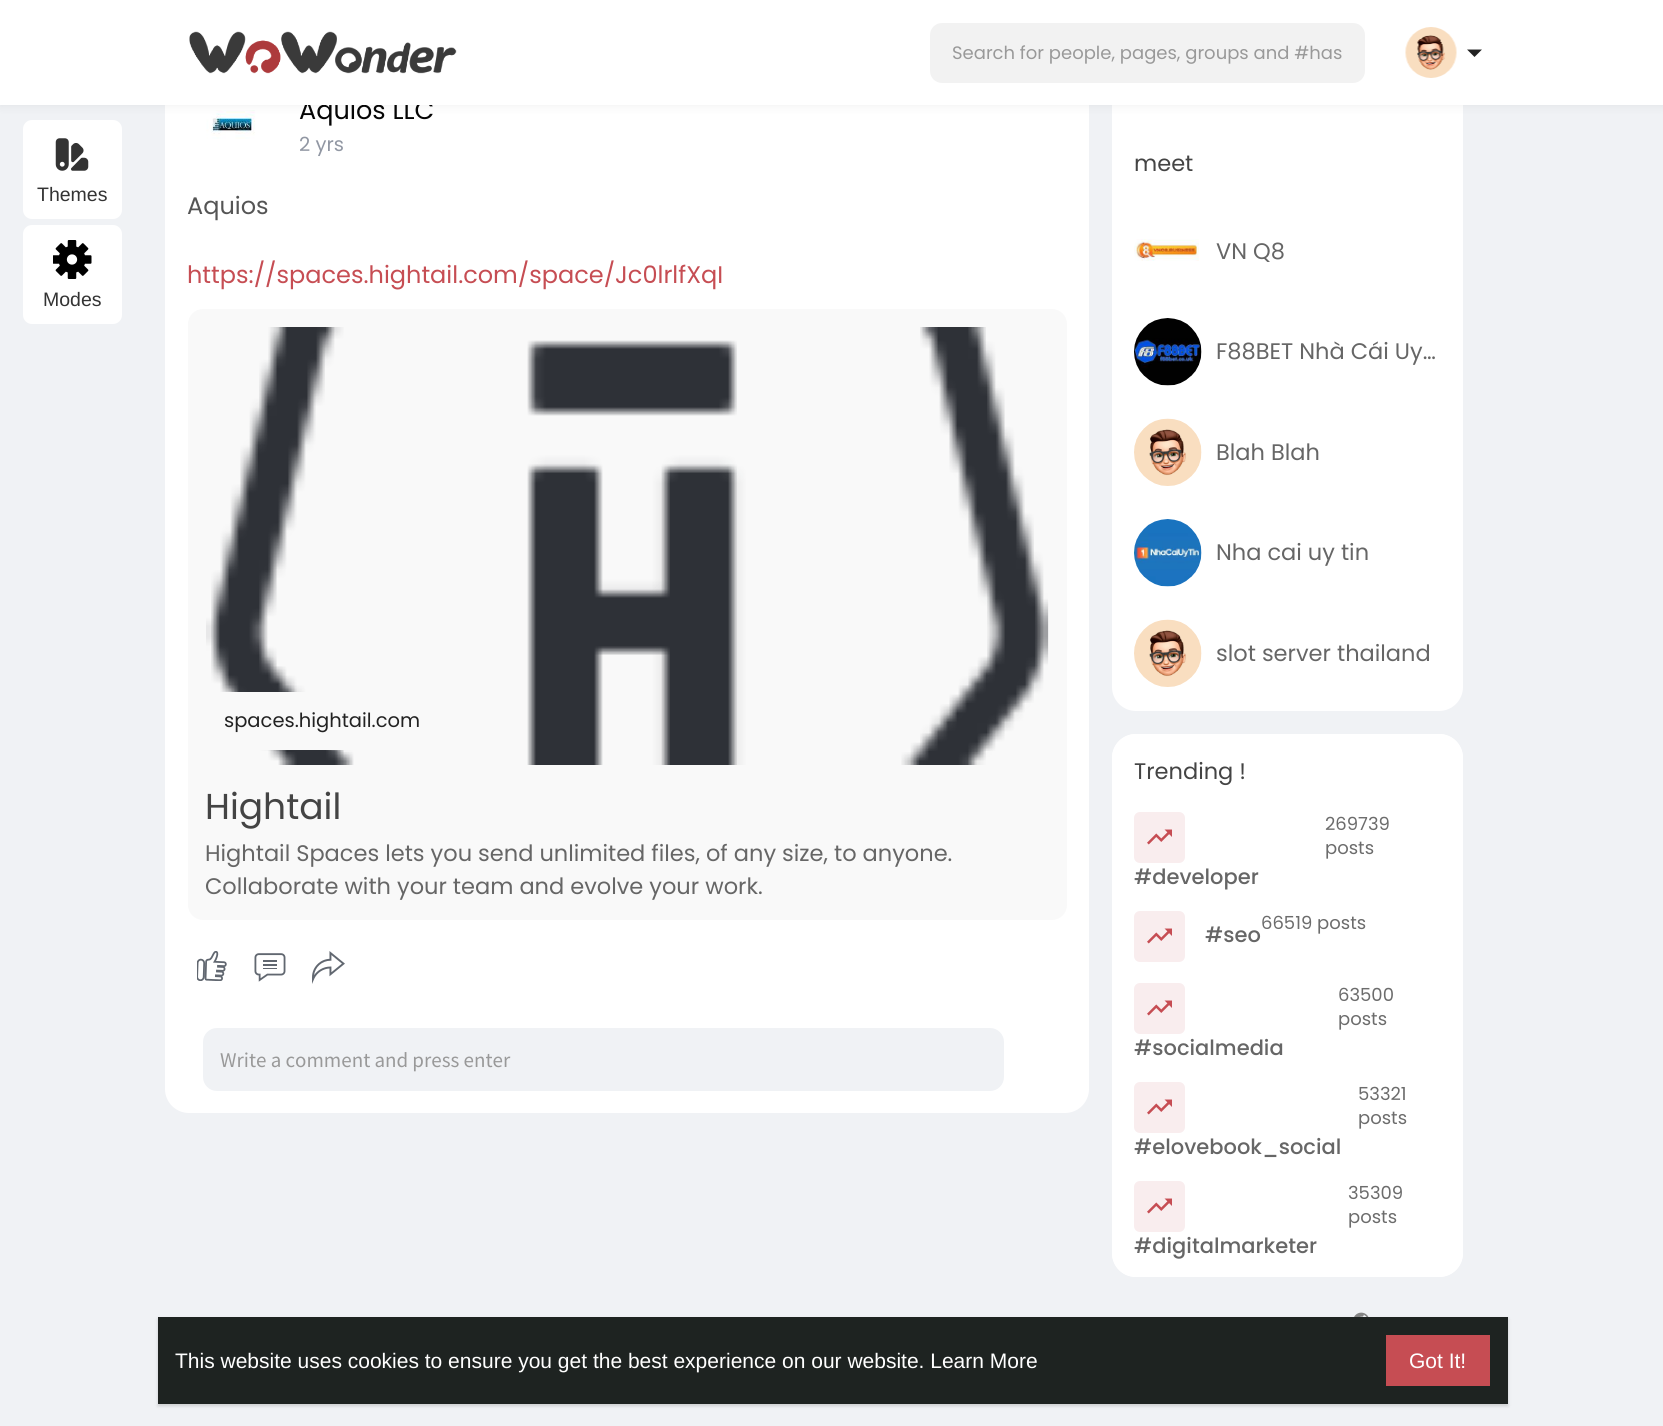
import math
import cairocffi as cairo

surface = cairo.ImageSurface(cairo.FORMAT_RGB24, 1663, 1426)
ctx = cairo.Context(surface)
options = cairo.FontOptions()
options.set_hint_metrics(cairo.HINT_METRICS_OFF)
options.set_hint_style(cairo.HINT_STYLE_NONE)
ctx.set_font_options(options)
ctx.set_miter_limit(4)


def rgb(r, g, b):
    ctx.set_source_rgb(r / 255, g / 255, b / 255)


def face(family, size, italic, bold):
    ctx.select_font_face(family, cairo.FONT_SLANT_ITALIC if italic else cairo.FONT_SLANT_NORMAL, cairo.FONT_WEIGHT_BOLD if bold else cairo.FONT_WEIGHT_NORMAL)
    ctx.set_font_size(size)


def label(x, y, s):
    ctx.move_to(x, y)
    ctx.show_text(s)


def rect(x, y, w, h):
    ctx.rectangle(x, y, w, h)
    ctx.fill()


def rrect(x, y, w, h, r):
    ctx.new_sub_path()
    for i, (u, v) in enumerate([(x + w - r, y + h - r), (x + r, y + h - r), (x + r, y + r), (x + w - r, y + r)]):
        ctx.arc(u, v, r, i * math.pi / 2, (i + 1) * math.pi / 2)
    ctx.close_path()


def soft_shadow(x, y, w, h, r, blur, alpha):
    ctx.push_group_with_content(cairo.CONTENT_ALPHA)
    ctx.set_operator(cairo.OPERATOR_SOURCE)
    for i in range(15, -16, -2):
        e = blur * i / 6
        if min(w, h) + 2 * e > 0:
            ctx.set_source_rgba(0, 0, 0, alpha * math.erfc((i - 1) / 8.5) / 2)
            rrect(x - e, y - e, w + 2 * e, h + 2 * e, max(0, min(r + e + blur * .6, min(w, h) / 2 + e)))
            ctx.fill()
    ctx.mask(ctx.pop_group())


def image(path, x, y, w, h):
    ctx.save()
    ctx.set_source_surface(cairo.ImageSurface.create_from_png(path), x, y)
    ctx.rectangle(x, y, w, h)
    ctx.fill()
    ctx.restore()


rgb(240, 242, 245)
ctx.paint()
rgb(255, 255, 255)
rrect(165, 51, 924, 1062, 24)
ctx.fill()
image('image3.png', 203, 110, 61, 53)
rrect(1112, 51, 351, 660, 24)
ctx.fill()
rgb(0, 0, 0)
soft_shadow(0, 2, 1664, 105, 0, 4.5, 0.05)
face('Poppins', 25.5, 0, 0)
rgb(5, 5, 5)
label(299, 119, 'Aquios LLC')
rgb(255, 255, 255)
rect(0, 0, 1663, 105)
image('image0.png', 189, 31, 268, 43)
rgb(242, 242, 242)
rrect(930, 23, 435, 60, 12)
ctx.fill()
face('Poppins', 18, 0, 0)
rgb(153, 153, 153)
label(952, 59, 'Search for people, pages, groups and #has')
image('image1.png', 1405, 27, 52, 51)
rgb(34, 34, 34)
ctx.new_path()
ctx.move_to(1467, 49.5)
ctx.line_to(1482, 49.5)
ctx.line_to(1474.5, 57)
ctx.close_path()
ctx.fill()
rgb(255, 255, 255)
rrect(23, 120, 99, 99, 9)
ctx.fill()
image('image2.png', 55, 138, 34, 33)
face('Liberation Sans', 19.5, 0, 0)
rgb(51, 51, 51)
label(37, 201, 'Themes')
face('Poppins', 19.5, 0, 0)
rgb(145, 151, 163)
label(299, 151, '2 yrs')
face('Poppins', 24, 0, 0)
rgb(85, 85, 85)
label(187, 214, 'Aquios')
rgb(198, 77, 83)
label(187, 283, 'https://spaces.hightail.com/space/Jc0lrlfXqI')
rgb(249, 249, 249)
rrect(188, 309, 879, 611, 15)
ctx.fill()
image('image4.png', 206, 327, 843, 438)
ctx.new_path()
ctx.move_to(206, 692)
ctx.line_to(441, 692)
ctx.curve_to(446, 692, 450, 696, 450, 701)
ctx.line_to(450, 741)
ctx.curve_to(450, 746, 446, 750, 441, 750)
ctx.line_to(206, 750)
ctx.close_path()
ctx.fill()
face('Poppins', 19.5, 0, 0)
rgb(34, 34, 34)
label(224, 727, 'spaces.hightail.com')
face('Poppins', 36, 0, 0)
rgb(68, 68, 68)
label(205, 819, 'Hightail')
face('Poppins', 22.5, 0, 0)
rgb(102, 102, 102)
label(205, 861, 'Hightail Spaces lets you send unlimited files, of any size, to anyone.')
label(205, 894, 'Collaborate with your team and evolve your work.')
image('image5.png', 197, 951, 30, 30)
image('image6.png', 254, 953, 32, 29)
image('image7.png', 312, 951, 33, 33)
rgb(240, 242, 245)
rrect(203, 1028, 801, 63, 14)
ctx.fill()
face('Source Sans Pro', 21, 0, 0)
rgb(153, 153, 153)
label(220, 1067, 'Write a comment and press enter')
face('Poppins', 22.5, 0, 0)
rgb(68, 68, 68)
label(1134, 171, 'meet')
image('image8.png', 1134, 239, 65, 22)
rgb(102, 102, 102)
label(1216, 259, 'VN Q8')
image('image9.png', 1134, 318, 68, 68)
label(1216, 359, 'F88BET Nhà Cái Uy…')
image('image10.png', 1134, 418, 68, 68)
label(1216, 460, 'Blah Blah')
image('image11.png', 1134, 519, 68, 68)
label(1216, 560, 'Nha cai uy tin')
image('image12.png', 1134, 619, 68, 68)
label(1216, 661, 'slot server thailand')
rgb(255, 255, 255)
rrect(1112, 734, 351, 543, 24)
ctx.fill()
ctx.new_path()
ctx.move_to(1136, 734)
ctx.line_to(1439, 734)
ctx.curve_to(1452.5, 734, 1463, 744.5, 1463, 758)
ctx.line_to(1463, 809)
ctx.line_to(1112, 809)
ctx.line_to(1112, 758)
ctx.curve_to(1112, 744.5, 1122.5, 734, 1136, 734)
ctx.close_path()
ctx.fill()
rgb(68, 68, 68)
label(1134, 779, 'Trending !')
face('Poppins', 18, 0, 0)
rgb(108, 108, 108)
label(1325, 830, '269739')
label(1325, 854, 'posts')
rgb(249, 237, 238)
rrect(1134, 812, 51, 51, 6)
ctx.fill()
image('image13.png', 1147, 829, 25, 16)
face('Poppins Medium', 21, 0, 0)
rgb(102, 102, 102)
label(1134, 884, '#developer')
rgb(249, 237, 238)
rrect(1134, 911, 51, 51, 6)
ctx.fill()
rgb(102, 102, 102)
label(1205, 942, '#seo')
image('image13.png', 1147, 928, 25, 16)
face('Poppins', 18, 0, 0)
rgb(108, 108, 108)
label(1261, 929, '66519 posts')
label(1338, 1001, '63500')
label(1338, 1025, 'posts')
rgb(249, 237, 238)
rrect(1134, 983, 51, 51, 6)
ctx.fill()
image('image13.png', 1147, 1000, 25, 16)
face('Poppins Medium', 21, 0, 0)
rgb(102, 102, 102)
label(1134, 1055, '#socialmedia')
face('Poppins', 18, 0, 0)
rgb(108, 108, 108)
label(1358, 1100, '53321')
label(1358, 1124, 'posts')
rgb(249, 237, 238)
rrect(1134, 1082, 51, 51, 6)
ctx.fill()
image('image13.png', 1147, 1099, 25, 16)
face('Poppins Medium', 21, 0, 0)
rgb(102, 102, 102)
label(1134, 1154, '#elovebook_social')
rgb(255, 255, 255)
ctx.new_path()
ctx.move_to(1112, 1178)
ctx.line_to(1463, 1178)
ctx.line_to(1463, 1253)
ctx.curve_to(1463, 1266.5, 1452.5, 1277, 1439, 1277)
ctx.line_to(1136, 1277)
ctx.curve_to(1122.5, 1277, 1112, 1266.5, 1112, 1253)
ctx.close_path()
ctx.fill()
face('Poppins', 18, 0, 0)
rgb(108, 108, 108)
label(1348, 1199, '35309')
label(1348, 1223, 'posts')
rgb(249, 237, 238)
rrect(1134, 1181, 51, 51, 6)
ctx.fill()
image('image13.png', 1147, 1198, 25, 16)
face('Poppins Medium', 21, 0, 0)
rgb(102, 102, 102)
label(1134, 1253, '#digitalmarketer')
image('image14.png', 1354, 1312, 15, 5)
rgb(255, 255, 255)
rrect(23, 225, 99, 99, 9)
ctx.fill()
image('image15.png', 53, 240, 39, 39)
face('Liberation Sans', 19.5, 0, 0)
rgb(51, 51, 51)
label(43, 306, 'Modes')
rgb(0, 0, 0)
soft_shadow(158, 1319, 1350, 87, 0, 1.5, 0.06)
soft_shadow(158, 1319, 1350, 87, 0, 2, 0.1)
rgb(30, 35, 33)
rect(158, 1317, 1350, 87)
face('Liberation Sans', 21, 0, 0)
rgb(255, 255, 255)
label(175, 1368, 'This website uses cookies to ensure you get the best experience on our website. Learn More')
rgb(198, 77, 83)
rect(1386, 1335, 104, 51)
rgb(255, 255, 255)
label(1409, 1368, 'Got It!')
surface.write_to_png('render.png')
